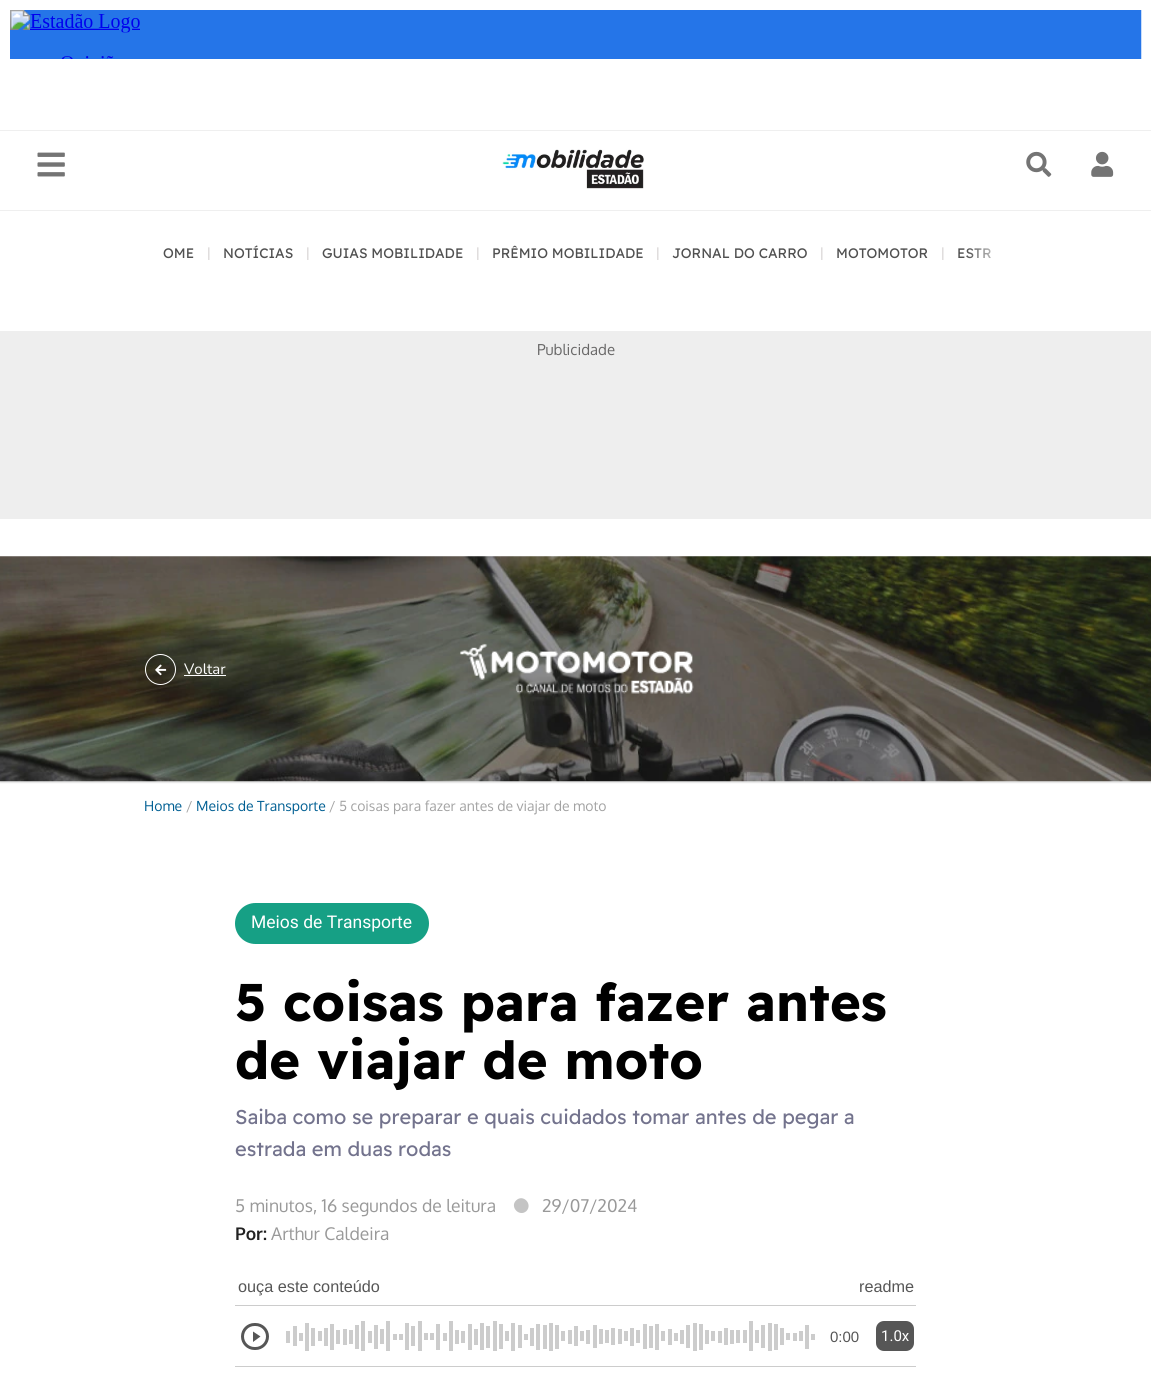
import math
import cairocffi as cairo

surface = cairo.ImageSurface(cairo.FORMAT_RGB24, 1151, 1396)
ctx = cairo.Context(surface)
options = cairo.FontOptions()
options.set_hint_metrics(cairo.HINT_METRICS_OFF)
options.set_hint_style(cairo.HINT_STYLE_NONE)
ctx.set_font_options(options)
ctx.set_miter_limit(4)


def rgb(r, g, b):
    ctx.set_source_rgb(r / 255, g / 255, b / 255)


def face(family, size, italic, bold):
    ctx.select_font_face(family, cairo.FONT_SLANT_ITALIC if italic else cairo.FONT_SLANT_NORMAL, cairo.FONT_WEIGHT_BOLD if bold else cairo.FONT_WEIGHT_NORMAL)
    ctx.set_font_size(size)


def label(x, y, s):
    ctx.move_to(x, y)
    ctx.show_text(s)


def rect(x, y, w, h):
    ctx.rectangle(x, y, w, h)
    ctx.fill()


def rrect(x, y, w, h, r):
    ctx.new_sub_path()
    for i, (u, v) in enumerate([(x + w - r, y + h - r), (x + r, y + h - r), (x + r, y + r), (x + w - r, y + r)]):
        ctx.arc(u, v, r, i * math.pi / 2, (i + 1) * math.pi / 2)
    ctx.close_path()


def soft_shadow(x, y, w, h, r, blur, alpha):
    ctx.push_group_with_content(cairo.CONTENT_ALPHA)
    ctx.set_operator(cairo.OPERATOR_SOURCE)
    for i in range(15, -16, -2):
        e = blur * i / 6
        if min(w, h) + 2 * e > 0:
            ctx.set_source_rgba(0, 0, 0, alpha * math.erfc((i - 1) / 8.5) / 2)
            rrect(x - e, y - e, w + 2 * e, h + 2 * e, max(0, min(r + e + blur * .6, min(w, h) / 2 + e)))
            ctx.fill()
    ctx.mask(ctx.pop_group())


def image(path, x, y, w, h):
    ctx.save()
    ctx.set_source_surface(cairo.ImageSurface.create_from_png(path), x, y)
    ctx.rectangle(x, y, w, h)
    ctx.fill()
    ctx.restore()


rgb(255, 255, 255)
ctx.paint()
image('image0.png', 10, 10, 1132, 49)
rgb(239, 239, 239)
rect(0, 130, 1151, 1)
rect(0, 210, 1151, 1)
image('image1.png', 37, 152, 28, 25)
image('image2.png', 502, 149, 142, 40)
image('image3.png', 1026, 151, 26, 26)
image('image4.png', 1091, 151, 23, 26)
face('Readex Pro', 13.75, 0, 0)
rgb(80, 80, 80)
label(163, 258, 'OME')
face('Roboto', 15, 0, 0)
rgb(211, 207, 207)
label(207, 258, '|')
face('Readex Pro', 13.75, 0, 0)
rgb(80, 80, 80)
label(223, 258, 'NOTÍCIAS')
face('Roboto', 15, 0, 0)
rgb(211, 207, 207)
label(306, 258, '|')
face('Readex Pro', 13.75, 0, 0)
rgb(80, 80, 80)
label(322, 258, 'GUIAS MOBILIDADE')
face('Roboto', 15, 0, 0)
rgb(211, 207, 207)
label(476, 258, '|')
face('Readex Pro', 13.75, 0, 0)
rgb(80, 80, 80)
label(492, 258, 'PRÊMIO MOBILIDADE')
face('Roboto', 15, 0, 0)
rgb(211, 207, 207)
label(656, 258, '|')
face('Readex Pro', 13.75, 0, 0)
rgb(80, 80, 80)
label(672, 258, 'JORNAL DO CARRO')
face('Roboto', 15, 0, 0)
rgb(211, 207, 207)
label(820, 258, '|')
face('Readex Pro', 13.75, 0, 0)
rgb(80, 80, 80)
label(836, 258, 'MOTOMOTOR')
face('Roboto', 15, 0, 0)
rgb(211, 207, 207)
label(941, 258, '|')
face('Readex Pro', 13.75, 0, 0)
rgb(80, 80, 80)
label(957, 258, 'ESTR')
gradient = cairo.LinearGradient(1026, 253, 951, 253)
gradient.add_color_stop_rgba(0.22, 1, 1, 1, 1)
gradient.add_color_stop_rgba(0.8, 1, 1, 1, 0)
ctx.set_source(gradient)
rect(967, 248, 24, 10)
rgb(238, 238, 238)
rect(0, 331, 1151, 188)
face('Oxygen', 15, 0, 0)
rgb(105, 104, 104)
label(537, 355, 'Publicidade')
rgb(0, 0, 0)
soft_shadow(0, 558, 1151, 225, 0, 0.5, 0.1)
image('image5.png', 0, 556, 1151, 226)
image('image6.png', 145, 654, 31, 31)
face('Nunito ExtraLight', 15, 0, 0)
rgb(255, 255, 255)
label(184, 674, 'Voltar')
rect(184, 675, 42, 1)
image('image7.png', 460, 643, 234, 51)
face('Oxygen', 14, 0, 0)
rgb(0, 95, 147)
label(144, 811, 'Home')
rgb(163, 163, 163)
label(186, 811, '/')
rgb(0, 95, 147)
label(196, 811, 'Meios de Transporte')
rgb(163, 163, 163)
label(329, 811, '/ 5 coisas para fazer antes de viajar de moto')
rgb(22, 160, 133)
rrect(235, 903, 194, 41, 20.5)
ctx.fill()
face('Roboto', 17.5, 0, 0)
rgb(255, 255, 255)
label(251, 928, 'Meios de Transporte')
face('Readex Pro', 52.5, 0, 1)
rgb(0, 0, 0)
label(235, 1021, '5 coisas para fazer antes')
label(235, 1079, 'de viajar de moto')
face('Readex Pro', 20, 0, 0)
rgb(115, 115, 141)
label(235, 1124, 'Saiba como se preparar e quais cuidados tomar antes de pegar a')
label(235, 1156, 'estrada em duas rodas')
face('Oxygen', 17.5, 0, 0)
rgb(153, 153, 153)
label(235, 1212, '5 minutos, 16 segundos de leitura')
label(542, 1212, '29/07/2024')
rgb(196, 196, 196)
ctx.new_path()
ctx.move_to(516, 1200.5)
ctx.curve_to(523, 1193.5, 533, 1204, 526.5, 1211)
ctx.curve_to(519.5, 1217.5, 509.5, 1207, 516, 1200.5)
ctx.close_path()
ctx.fill()
face('Oxygen', 17.5, 0, 1)
rgb(34, 34, 34)
label(235, 1240, 'Por:')
face('Oxygen', 17.5, 0, 0)
rgb(153, 153, 153)
label(271, 1240, 'Arthur Caldeira')
face('Liberation Sans', 16.25, 0, 0)
rgb(86, 86, 86)
label(238, 1292, 'ouça este conteúdo')
label(859, 1292, 'readme')
rgb(204, 204, 204)
rect(235, 1305, 681, 1)
rect(235, 1366, 681, 1)
rrect(242.5, 1324.5, 25, 24, 12)
rgb(86, 86, 86)
ctx.set_line_width(3)
ctx.stroke()
ctx.new_path()
ctx.move_to(253, 1342)
ctx.line_to(253, 1331.5)
ctx.line_to(260.5, 1336.5)
ctx.close_path()
ctx.fill()
rgb(204, 204, 204)
rect(286, 1331, 4, 12)
rect(293, 1326, 4, 20)
rect(299, 1333, 4, 8)
rect(305, 1323, 4, 28)
rect(311, 1328, 4, 18)
rect(318, 1331, 4, 10)
rect(324, 1328, 4, 18)
rect(330, 1324, 4, 26)
rect(336, 1330, 4, 14)
rect(343, 1329, 4, 16)
rect(349, 1330, 4, 14)
rect(355, 1325, 4, 24)
rect(361, 1321, 4, 30)
rect(368, 1331, 4, 12)
rect(374, 1325, 4, 24)
rect(380, 1329, 4, 15)
rect(386, 1321, 4, 30)
rect(393, 1334, 4, 6)
rect(399, 1334, 4, 6)
rect(405, 1323, 4, 27)
rect(411, 1326, 4, 20)
rect(418, 1321, 4, 30)
rect(424, 1333, 4, 7)
rect(430, 1333, 4, 7)
rect(436, 1324, 4, 26)
rect(443, 1333, 4, 8)
rect(449, 1321, 4, 30)
rect(455, 1330, 4, 14)
rect(461, 1331, 4, 12)
rect(468, 1324, 4, 26)
rect(474, 1329, 4, 16)
rect(480, 1323, 4, 27)
rect(486, 1326, 4, 22)
rect(493, 1321, 4, 30)
rect(499, 1324, 4, 25)
rect(505, 1331, 4, 10)
rect(511, 1323, 4, 28)
rect(518, 1325, 4, 23)
rect(524, 1334, 4, 6)
rect(530, 1328, 4, 18)
rect(536, 1324, 4, 26)
rect(543, 1325, 4, 24)
rect(549, 1323, 4, 28)
rect(555, 1325, 4, 24)
rect(561, 1331, 4, 10)
rect(568, 1330, 4, 14)
rect(574, 1326, 4, 20)
rect(580, 1331, 4, 10)
rect(586, 1330, 4, 14)
rect(593, 1325, 4, 23)
rect(599, 1329, 4, 15)
rect(605, 1330, 4, 13)
rect(611, 1328, 4, 17)
rect(618, 1329, 4, 15)
rect(624, 1331, 4, 10)
rect(630, 1328, 4, 18)
rect(636, 1330, 4, 13)
rect(643, 1324, 4, 25)
rect(649, 1326, 4, 22)
rect(655, 1324, 4, 26)
rect(661, 1331, 4, 10)
rect(668, 1329, 4, 16)
rect(674, 1333, 4, 8)
rect(680, 1330, 4, 14)
rect(686, 1325, 4, 23)
rect(693, 1323, 4, 28)
rect(699, 1324, 4, 26)
rect(705, 1330, 4, 14)
rect(711, 1331, 4, 10)
rect(718, 1331, 4, 12)
rect(724, 1328, 4, 17)
rect(730, 1330, 4, 14)
rect(736, 1330, 4, 13)
rect(743, 1330, 4, 13)
rect(749, 1321, 4, 30)
rect(755, 1330, 4, 13)
rect(761, 1325, 4, 23)
rect(768, 1323, 4, 28)
rect(774, 1324, 4, 26)
rect(780, 1328, 4, 17)
rect(786, 1333, 4, 7)
rect(793, 1333, 4, 8)
rect(799, 1331, 4, 10)
rect(805, 1325, 4, 24)
rect(811, 1334, 4, 6)
face('Liberation Sans', 15, 0, 0)
rgb(86, 86, 86)
label(830, 1342, '0:00')
rrect(876, 1321, 38, 30, 8)
ctx.fill()
face('Roboto', 15, 0, 0)
rgb(255, 255, 255)
label(881, 1341, '1.0x')
surface.write_to_png('render.png')
